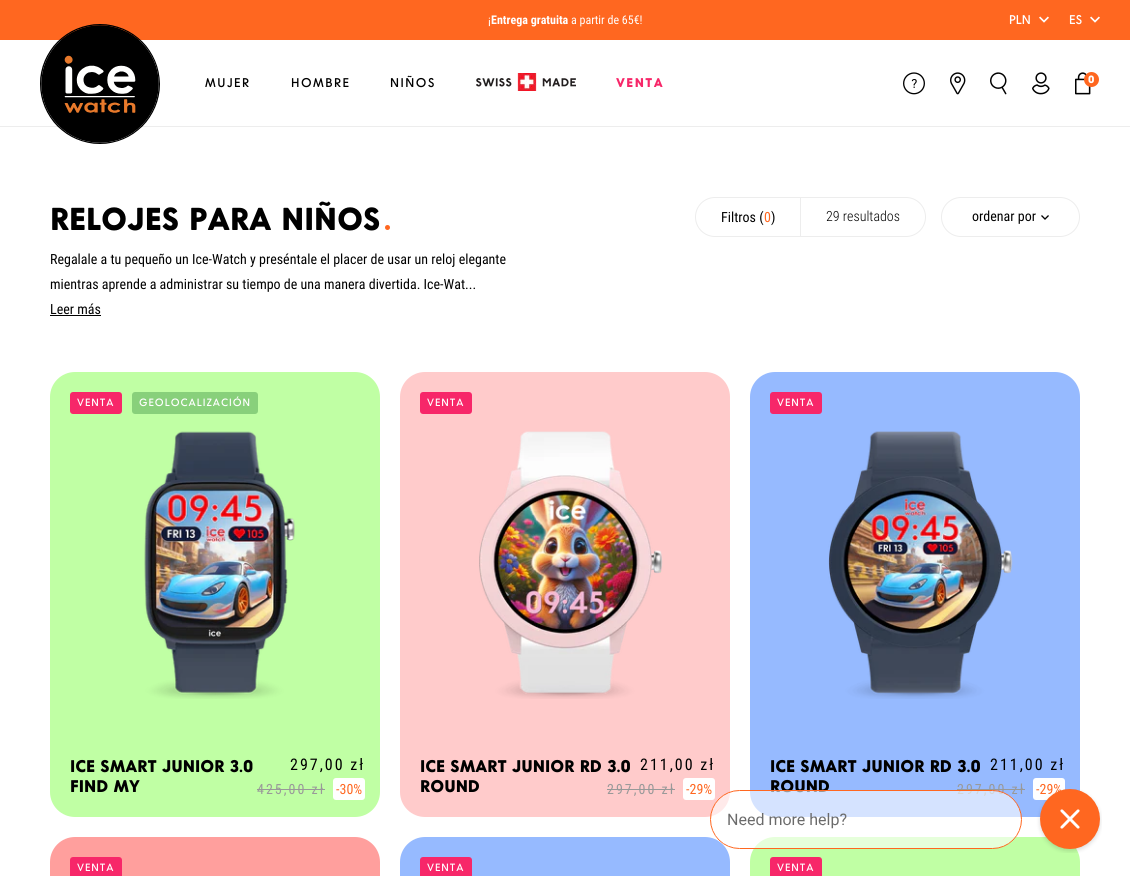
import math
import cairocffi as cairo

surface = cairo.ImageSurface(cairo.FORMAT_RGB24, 1130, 876)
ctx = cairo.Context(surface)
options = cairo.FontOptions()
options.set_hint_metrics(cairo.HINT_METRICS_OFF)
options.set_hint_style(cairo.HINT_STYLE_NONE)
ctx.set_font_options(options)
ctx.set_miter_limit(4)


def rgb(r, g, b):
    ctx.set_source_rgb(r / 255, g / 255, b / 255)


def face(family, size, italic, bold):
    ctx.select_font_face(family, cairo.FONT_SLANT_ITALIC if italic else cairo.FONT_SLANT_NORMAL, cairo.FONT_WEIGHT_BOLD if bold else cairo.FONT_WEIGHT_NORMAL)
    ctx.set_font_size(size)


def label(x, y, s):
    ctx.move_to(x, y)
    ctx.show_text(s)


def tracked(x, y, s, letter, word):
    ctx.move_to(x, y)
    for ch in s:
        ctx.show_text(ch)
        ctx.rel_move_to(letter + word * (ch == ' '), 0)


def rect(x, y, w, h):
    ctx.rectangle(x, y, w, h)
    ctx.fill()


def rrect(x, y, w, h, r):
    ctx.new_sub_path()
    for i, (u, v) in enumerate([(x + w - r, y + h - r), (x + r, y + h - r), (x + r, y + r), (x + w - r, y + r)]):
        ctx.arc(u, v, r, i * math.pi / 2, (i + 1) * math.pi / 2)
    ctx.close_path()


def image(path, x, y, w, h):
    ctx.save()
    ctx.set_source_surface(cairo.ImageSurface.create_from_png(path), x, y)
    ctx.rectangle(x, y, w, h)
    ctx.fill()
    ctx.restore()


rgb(255, 255, 255)
ctx.paint()
rgb(255, 103, 32)
rect(0, 0, 1130, 40)
face('Roboto Condensed', 12, 0, 0)
rgb(255, 255, 255)
label(488, 24, '¡')
face('Roboto Condensed', 12, 0, 1)
label(491, 24, 'Entrega gratuita')
face('Roboto Condensed', 12, 0, 0)
label(571, 24, 'a partir de 65€!')
face('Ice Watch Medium', 12, 0, 0)
label(1009, 24, 'PLN')
image('image0.png', 1039, 16, 10, 7)
label(1069, 24, 'ES')
image('image0.png', 1090, 16, 10, 7)
rgb(237, 237, 237)
rect(0, 126, 1130, 1)
image('image1.png', 40, 24, 120, 120)
rgb(0, 0, 0)
tracked(205, 87, 'Mujer', 1.5, 0)
tracked(291, 87, 'Hombre', 1.5, 0)
tracked(390, 87, 'Niños', 1.5, 0)
image('image2.png', 476, 73, 100, 18)
face('Ice Watch', 12, 0, 1)
rgb(247, 39, 105)
tracked(616, 87, 'Venta', 1.5, 0)
image('image3.png', 903, 72, 22, 23)
image('image5.png', 954, 76, 7, 8)
image('image4.png', 950, 72, 16, 23)
image('image6.png', 990, 72, 17, 23)
image('image7.png', 1032, 72, 18, 23)
image('image8.png', 1075, 72, 16, 23)
rgb(255, 103, 32)
ctx.arc(1091.5, 79.5, 7.5, 0, 2 * math.pi)
ctx.fill()
face('Ice Watch', 10, 0, 1)
rgb(255, 255, 255)
label(1088, 83, '0')
face('Ice Watch', 30, 0, 1)
rgb(0, 0, 0)
label(50, 230, 'Relojes para niños')
rgb(255, 103, 32)
ctx.new_path()
ctx.arc(387.5, 227.5, 2.5, 0, 2 * math.pi)
ctx.fill()
rrect(695.5, 197.5, 230, 39, 19.5)
rgb(237, 237, 237)
ctx.set_line_width(1)
ctx.stroke()
face('Roboto Condensed', 14, 0, 0)
rgb(0, 0, 0)
label(721, 222, 'Filtros (')
rgb(255, 103, 32)
label(764, 222, '0')
rgb(0, 0, 0)
label(771, 222, ')')
rgb(237, 237, 237)
rect(800, 198, 1, 38)
face('Roboto Condensed Light', 14, 0, 0)
rgb(0, 0, 0)
label(826, 221, '29 resultados')
rrect(941.5, 197.5, 138, 39, 19.5)
rgb(237, 237, 237)
ctx.stroke()
face('Roboto Condensed', 14, 0, 0)
rgb(0, 0, 0)
label(972, 221, 'ordenar por')
image('image9.png', 1041, 215, 8, 5)
label(50, 264, 'Regalale a tu pequeño un Ice-Watch y preséntale el placer de usar un reloj elegante')
label(50, 289, 'mientras aprende a administrar su tiempo de una manera divertida. Ice-Wat...')
label(50, 314, 'Leer más')
rect(50, 315, 51, 1)
rgb(192, 255, 164)
rrect(50, 372, 330, 445, 25)
ctx.fill()
rgb(247, 39, 105)
rrect(70, 392, 52, 22, 3)
ctx.fill()
face('Ice Watch Medium', 10, 0, 0)
rgb(255, 255, 255)
tracked(77, 406, 'VENTA', 1, 0)
rgb(136, 208, 123)
rrect(132, 392, 126, 22, 3)
ctx.fill()
rgb(255, 255, 255)
tracked(139, 406, 'GEOLOCALIZACIÓN', 1, 0)
image('image10.png', 144, 431, 151, 268)
face('Ice Watch', 16, 0, 1)
rgb(0, 0, 0)
label(70, 772, 'ICE smart junior 3.0')
label(70, 792, 'Find My')
face('Roboto Condensed', 16, 0, 0)
tracked(290, 770, '297,00 zł', 2, 0)
face('Roboto Condensed', 14, 0, 0)
rgb(153, 153, 153)
tracked(257, 794, '425,00 zł', 2, 0)
rect(257, 789, 68, 1)
rgb(255, 255, 255)
rrect(333, 778, 32, 22, 3)
ctx.fill()
rgb(255, 103, 32)
label(336, 794, '-30%')
rgb(255, 203, 203)
rrect(400, 372, 330, 445, 25)
ctx.fill()
rgb(247, 39, 105)
rrect(420, 392, 52, 22, 3)
ctx.fill()
face('Ice Watch Medium', 10, 0, 0)
rgb(255, 255, 255)
tracked(427, 406, 'VENTA', 1, 0)
image('image11.png', 479, 431, 184, 268)
face('Ice Watch', 16, 0, 1)
rgb(0, 0, 0)
label(420, 772, 'ICE smart junior RD 3.0')
label(420, 792, 'round')
face('Roboto Condensed', 16, 0, 0)
tracked(640, 770, '211,00 zł', 2, 0)
face('Roboto Condensed', 14, 0, 0)
rgb(153, 153, 153)
tracked(607, 794, '297,00 zł', 2, 0)
rect(607, 789, 68, 1)
rgb(255, 255, 255)
rrect(683, 778, 32, 22, 3)
ctx.fill()
rgb(255, 103, 32)
label(686, 794, '-29%')
rgb(150, 186, 255)
rrect(750, 372, 330, 445, 25)
ctx.fill()
rgb(247, 39, 105)
rrect(770, 392, 52, 22, 3)
ctx.fill()
face('Ice Watch Medium', 10, 0, 0)
rgb(255, 255, 255)
tracked(777, 406, 'VENTA', 1, 0)
image('image12.png', 828, 431, 185, 268)
face('Ice Watch', 16, 0, 1)
rgb(0, 0, 0)
label(770, 772, 'ICE smart junior RD 3.0')
label(770, 792, 'round')
face('Roboto Condensed', 16, 0, 0)
tracked(990, 770, '211,00 zł', 2, 0)
face('Roboto Condensed', 14, 0, 0)
rgb(153, 153, 153)
tracked(957, 794, '297,00 zł', 2, 0)
rect(957, 789, 68, 1)
rgb(255, 255, 255)
rrect(1033, 778, 32, 22, 3)
ctx.fill()
rgb(255, 103, 32)
label(1036, 794, '-29%')
rgb(255, 159, 157)
rrect(50, 837, 330, 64, 25)
ctx.fill()
rgb(247, 39, 105)
rrect(70, 857, 52, 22, 3)
ctx.fill()
face('Ice Watch Medium', 10, 0, 0)
rgb(255, 255, 255)
tracked(77, 871, 'VENTA', 1, 0)
rgb(150, 186, 255)
rrect(400, 837, 330, 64, 25)
ctx.fill()
rgb(247, 39, 105)
rrect(420, 857, 52, 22, 3)
ctx.fill()
rgb(255, 255, 255)
tracked(427, 871, 'VENTA', 1, 0)
rgb(192, 255, 164)
rrect(750, 837, 330, 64, 25)
ctx.fill()
rgb(247, 39, 105)
rrect(770, 857, 52, 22, 3)
ctx.fill()
rgb(255, 255, 255)
tracked(777, 871, 'VENTA', 1, 0)
image('image13.png', 710, 789, 392, 64)
surface.write_to_png('render.png')
